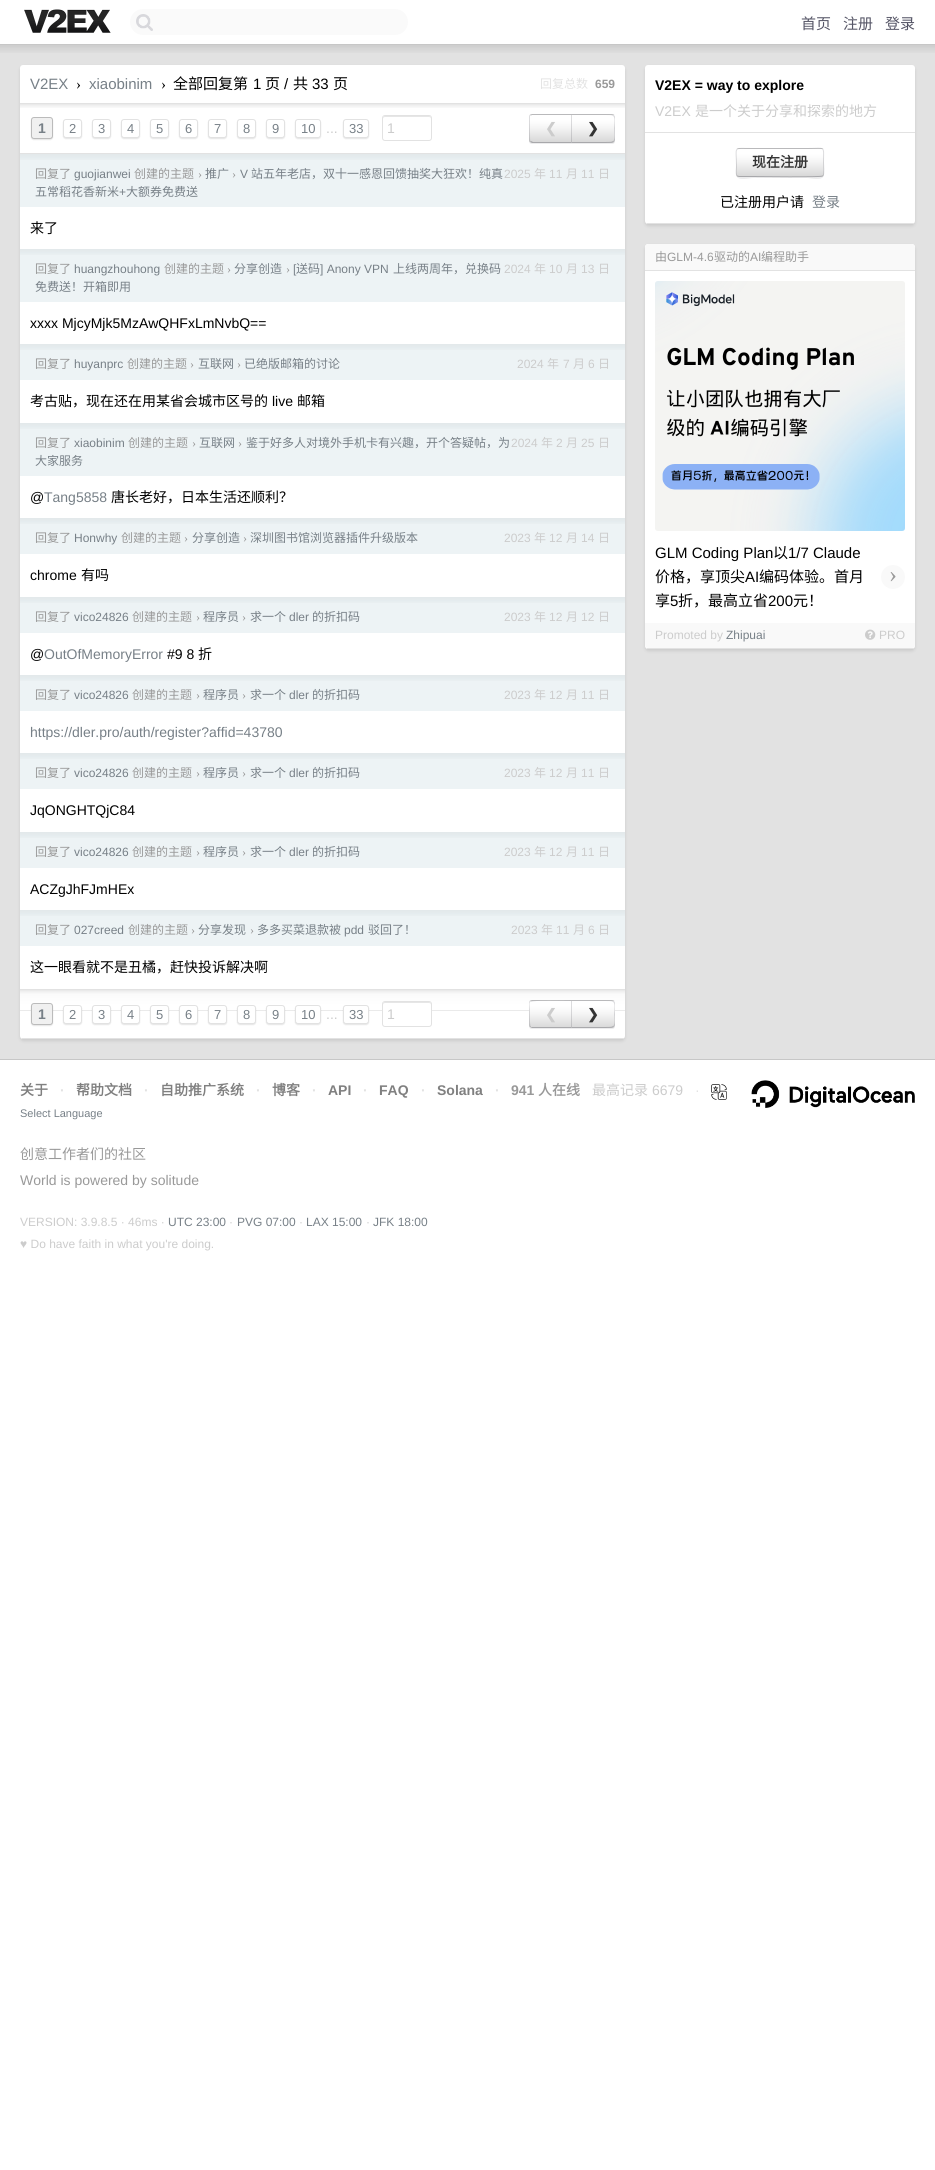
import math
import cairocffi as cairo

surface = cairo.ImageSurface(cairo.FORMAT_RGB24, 935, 2170)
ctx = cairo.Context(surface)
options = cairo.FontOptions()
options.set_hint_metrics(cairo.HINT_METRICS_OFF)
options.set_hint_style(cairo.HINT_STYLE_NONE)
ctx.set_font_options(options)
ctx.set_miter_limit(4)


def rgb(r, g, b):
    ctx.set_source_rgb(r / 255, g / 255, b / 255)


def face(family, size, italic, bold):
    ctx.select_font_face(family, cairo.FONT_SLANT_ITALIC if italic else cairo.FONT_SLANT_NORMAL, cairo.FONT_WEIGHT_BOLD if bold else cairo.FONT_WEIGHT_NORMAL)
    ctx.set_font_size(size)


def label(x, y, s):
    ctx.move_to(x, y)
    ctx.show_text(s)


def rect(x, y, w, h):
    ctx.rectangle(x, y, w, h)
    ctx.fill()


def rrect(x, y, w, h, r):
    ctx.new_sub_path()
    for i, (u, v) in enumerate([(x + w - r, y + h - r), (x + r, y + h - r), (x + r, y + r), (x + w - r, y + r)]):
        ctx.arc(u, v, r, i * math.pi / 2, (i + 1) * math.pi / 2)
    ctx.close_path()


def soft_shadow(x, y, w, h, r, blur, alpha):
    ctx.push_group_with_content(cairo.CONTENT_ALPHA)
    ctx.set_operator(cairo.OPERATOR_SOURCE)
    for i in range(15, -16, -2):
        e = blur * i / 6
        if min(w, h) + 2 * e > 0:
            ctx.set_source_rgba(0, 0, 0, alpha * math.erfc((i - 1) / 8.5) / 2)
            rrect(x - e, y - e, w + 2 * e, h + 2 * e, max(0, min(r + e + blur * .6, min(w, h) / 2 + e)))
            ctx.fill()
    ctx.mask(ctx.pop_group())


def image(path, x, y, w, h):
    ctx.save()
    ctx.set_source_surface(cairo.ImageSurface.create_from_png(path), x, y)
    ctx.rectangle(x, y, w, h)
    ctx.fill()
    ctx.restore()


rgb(255, 255, 255)
ctx.paint()
rgb(199, 199, 199)
rect(0, 44, 935, 1)
image('image0.png', 24, 9, 87, 24)
rgb(250, 250, 250)
rrect(130, 9, 278, 26, 13)
ctx.fill()
image('image1.png', 136, 14, 17, 17)
face('Noto Sans CJK SC', 15, 0, 0)
rgb(85, 85, 102)
label(801, 29, '首页')
label(843, 29, '注册')
label(885, 29, '登录')
rgb(226, 226, 226)
rect(0, 45, 935, 1014)
image('image2.png', 0, 45, 935, 8)
rgb(0, 0, 0)
soft_shadow(20, 67, 605, 974, 3, 1.5, 0.1)
rgb(255, 255, 255)
rrect(20, 65, 605, 974, 3)
ctx.fill()
rgb(226, 226, 226)
rect(22, 1038, 602, 1)
rect(20, 103, 605, 1)
face('Liberation Sans', 15, 0, 0)
rgb(119, 128, 135)
label(30, 89, 'V2EX')
face('Liberation Serif', 15, 0, 0)
rgb(0, 0, 0)
label(76, 89, '›')
face('Liberation Sans', 15, 0, 0)
rgb(119, 128, 135)
label(89, 89, 'xiaobinim')
face('Liberation Serif', 15, 0, 0)
rgb(0, 0, 0)
label(161, 89, '›')
face('Noto Sans CJK SC', 15, 0, 0)
label(173, 89, '全部回复第')
face('Liberation Sans', 15, 0, 0)
label(253, 89, '1')
face('Noto Sans CJK SC', 15, 0, 0)
label(265, 89, '页')
face('Liberation Sans', 15, 0, 0)
label(284, 89, '/')
face('Noto Sans CJK SC', 15, 0, 0)
label(293, 89, '共')
face('Liberation Sans', 15, 0, 0)
label(312, 89, '33')
face('Noto Sans CJK SC', 15, 0, 0)
label(333, 89, '页')
face('Noto Sans CJK SC', 12, 0, 0)
rgb(226, 226, 226)
label(540, 88, '回复总数')
face('Liberation Sans', 12, 0, 1)
rgb(153, 153, 153)
label(595, 88, '659')
image('image3.png', 20, 104, 605, 4)
rgb(226, 226, 226)
rect(20, 153, 605, 1)
rgb(0, 0, 0)
soft_shadow(31, 118, 22, 22, 3, 0.5, 0.1)
rgb(240, 240, 240)
rrect(31.5, 117.5, 21, 21, 2.5)
ctx.fill_preserve()
rgb(187, 187, 187)
ctx.set_line_width(1)
ctx.stroke()
face('Liberation Sans', 14, 0, 1)
rgb(119, 128, 135)
label(38, 133, '1')
rgb(0, 0, 0)
soft_shadow(63, 120, 19, 19, 3, 0.5, 0.1)
rgb(255, 255, 255)
rrect(63.5, 119.5, 18, 18, 2.5)
ctx.fill_preserve()
rgb(226, 226, 226)
ctx.stroke()
face('Liberation Sans', 13, 0, 0)
rgb(119, 128, 135)
label(69, 133, '2')
rgb(0, 0, 0)
soft_shadow(92, 120, 19, 19, 3, 0.5, 0.1)
rgb(255, 255, 255)
rrect(92.5, 119.5, 18, 18, 2.5)
ctx.fill_preserve()
rgb(226, 226, 226)
ctx.stroke()
rgb(119, 128, 135)
label(98, 133, '3')
rgb(0, 0, 0)
soft_shadow(121, 120, 19, 19, 3, 0.5, 0.1)
rgb(255, 255, 255)
rrect(121.5, 119.5, 18, 18, 2.5)
ctx.fill_preserve()
rgb(226, 226, 226)
ctx.stroke()
rgb(119, 128, 135)
label(127, 133, '4')
rgb(0, 0, 0)
soft_shadow(150, 120, 19, 19, 3, 0.5, 0.1)
rgb(255, 255, 255)
rrect(150.5, 119.5, 18, 18, 2.5)
ctx.fill_preserve()
rgb(226, 226, 226)
ctx.stroke()
rgb(119, 128, 135)
label(156, 133, '5')
rgb(0, 0, 0)
soft_shadow(179, 120, 19, 19, 3, 0.5, 0.1)
rgb(255, 255, 255)
rrect(179.5, 119.5, 18, 18, 2.5)
ctx.fill_preserve()
rgb(226, 226, 226)
ctx.stroke()
rgb(119, 128, 135)
label(185, 133, '6')
rgb(0, 0, 0)
soft_shadow(208, 120, 19, 19, 3, 0.5, 0.1)
rgb(255, 255, 255)
rrect(208.5, 119.5, 18, 18, 2.5)
ctx.fill_preserve()
rgb(226, 226, 226)
ctx.stroke()
rgb(119, 128, 135)
label(214, 133, '7')
rgb(0, 0, 0)
soft_shadow(237, 120, 19, 19, 3, 0.5, 0.1)
rgb(255, 255, 255)
rrect(237.5, 119.5, 18, 18, 2.5)
ctx.fill_preserve()
rgb(226, 226, 226)
ctx.stroke()
rgb(119, 128, 135)
label(243, 133, '8')
rgb(0, 0, 0)
soft_shadow(266, 120, 19, 19, 3, 0.5, 0.1)
rgb(255, 255, 255)
rrect(266.5, 119.5, 18, 18, 2.5)
ctx.fill_preserve()
rgb(226, 226, 226)
ctx.stroke()
rgb(119, 128, 135)
label(272, 133, '9')
rgb(0, 0, 0)
soft_shadow(295, 120, 26, 19, 3, 0.5, 0.1)
rgb(255, 255, 255)
rrect(295.5, 119.5, 25, 18, 2.5)
ctx.fill_preserve()
rgb(226, 226, 226)
ctx.stroke()
rgb(119, 128, 135)
label(301, 133, '10')
face('Liberation Sans', 14, 0, 0)
rgb(204, 204, 204)
label(326, 133, '...')
rgb(0, 0, 0)
soft_shadow(343, 120, 26, 19, 3, 0.5, 0.1)
rgb(255, 255, 255)
rrect(343.5, 119.5, 25, 18, 2.5)
ctx.fill_preserve()
rgb(226, 226, 226)
ctx.stroke()
face('Liberation Sans', 13, 0, 0)
rgb(119, 128, 135)
label(349, 133, '33')
rgb(230, 230, 230)
ctx.new_path()
ctx.move_to(385, 117)
ctx.line_to(429, 117)
ctx.curve_to(430, 117, 431, 118, 431, 119)
ctx.curve_to(431, 114, 426, 116, 422, 116)
ctx.line_to(392, 116)
ctx.curve_to(388, 116, 383, 114, 383, 119)
ctx.curve_to(383, 118, 384, 117, 385, 117)
ctx.close_path()
ctx.fill()
rrect(382.5, 115.5, 49, 25, 2.5)
rgb(226, 226, 226)
ctx.stroke()
face('Liberation Sans', 14, 0, 0)
rgb(204, 204, 204)
label(387, 133, '1')
rgb(236, 236, 237)
ctx.new_path()
ctx.move_to(529, 140)
ctx.line_to(529, 141)
ctx.curve_to(529, 143, 530, 144, 532, 144)
ctx.line_to(571, 144)
ctx.line_to(571, 143)
ctx.line_to(532, 143)
ctx.curve_to(530, 143, 529, 142, 529, 140)
ctx.close_path()
ctx.fill()
rgb(255, 255, 255)
ctx.new_path()
ctx.move_to(532, 114)
ctx.line_to(571, 114)
ctx.line_to(571, 143)
ctx.line_to(532, 143)
ctx.curve_to(530.5, 143, 529, 141.5, 529, 140)
ctx.line_to(529, 117)
ctx.curve_to(529, 115.5, 530.5, 114, 532, 114)
ctx.close_path()
ctx.fill()
image('image4.png', 529, 114, 42, 29)
ctx.set_source_rgba(0.314, 0.314, 0.353, 0.2)
ctx.new_path()
ctx.move_to(532, 114)
ctx.line_to(530, 115)
ctx.line_to(531, 116)
ctx.line_to(532, 115)
ctx.line_to(571, 115)
ctx.line_to(571, 114)
ctx.close_path()
ctx.fill()
ctx.set_source_rgba(0.314, 0.314, 0.353, 0.35)
ctx.new_path()
ctx.move_to(571, 143)
ctx.line_to(571, 142)
ctx.line_to(533, 142)
ctx.line_to(531, 141)
ctx.line_to(530, 142)
ctx.line_to(532, 143)
ctx.close_path()
ctx.fill()
ctx.set_source_rgba(0.314, 0.314, 0.353, 0.2)
ctx.new_path()
ctx.move_to(529, 117)
ctx.line_to(529, 140)
ctx.curve_to(529, 141, 529, 142, 530, 142)
ctx.line_to(530.5, 141.5)
ctx.curve_to(530, 140, 530, 137.5, 530, 132)
ctx.line_to(530, 116)
ctx.line_to(530.5, 115.5)
ctx.line_to(530, 115)
ctx.curve_to(529, 115, 529, 116, 529, 117)
ctx.close_path()
ctx.fill()
face('DejaVu Sans', 14, 0, 1)
rgb(204, 204, 204)
label(545, 133, '❮')
rgb(236, 236, 237)
ctx.new_path()
ctx.move_to(571, 143)
ctx.line_to(571, 144)
ctx.line_to(612, 144)
ctx.curve_to(614, 144, 615, 143, 615, 141)
ctx.line_to(615, 140)
ctx.curve_to(615, 142, 614, 143, 612, 143)
ctx.close_path()
ctx.fill()
rgb(255, 255, 255)
ctx.new_path()
ctx.move_to(571, 114)
ctx.line_to(612, 114)
ctx.curve_to(613.5, 114, 615, 115.5, 615, 117)
ctx.line_to(615, 140)
ctx.curve_to(615, 141.5, 613.5, 143, 612, 143)
ctx.line_to(571, 143)
ctx.close_path()
ctx.fill()
image('image5.png', 571, 114, 44, 29)
ctx.set_source_rgba(0.314, 0.314, 0.353, 0.2)
ctx.new_path()
ctx.move_to(571, 114)
ctx.line_to(572, 115)
ctx.line_to(605, 115)
ctx.curve_to(610, 115, 612, 115, 613, 116)
ctx.line_to(614, 115)
ctx.curve_to(613, 114, 610, 114, 605, 114)
ctx.close_path()
ctx.fill()
ctx.new_path()
ctx.move_to(615, 140.5)
ctx.line_to(614, 142)
ctx.line_to(613, 141)
ctx.curve_to(615.5, 140, 614, 130, 614, 128)
ctx.curve_to(614, 126, 615.5, 117, 613, 116)
ctx.line_to(614, 115)
ctx.line_to(615, 116.5)
ctx.close_path()
ctx.fill()
ctx.set_source_rgba(0.314, 0.314, 0.353, 0.35)
ctx.new_path()
ctx.move_to(605, 143)
ctx.curve_to(610, 143, 613, 143, 614, 142)
ctx.line_to(613, 141)
ctx.curve_to(612, 142, 610, 142, 605, 142)
ctx.line_to(572, 142)
ctx.line_to(571, 143)
ctx.close_path()
ctx.fill()
ctx.set_source_rgba(0.314, 0.314, 0.353, 0.2)
ctx.new_path()
ctx.move_to(571, 114)
ctx.line_to(571, 143)
ctx.line_to(572, 142)
ctx.line_to(572, 115)
ctx.close_path()
ctx.fill()
rgb(51, 51, 51)
label(587, 133, '❯')
rgb(237, 243, 245)
rect(20, 154, 605, 53)
image('image6.png', 20, 154, 605, 6)
face('Noto Sans CJK SC', 12, 0, 0)
rgb(153, 153, 153)
label(35, 178, '回复了')
face('Liberation Sans', 12, 0, 0)
rgb(119, 128, 135)
label(74, 178, 'guojianwei')
face('Noto Sans CJK SC', 12, 0, 0)
rgb(153, 153, 153)
label(134, 178, '创建的主题')
face('Liberation Serif', 12, 0, 0)
label(198, 178, '›')
face('Noto Sans CJK SC', 12, 0, 0)
rgb(119, 128, 135)
label(205, 178, '推广')
face('Liberation Serif', 12, 0, 0)
rgb(153, 153, 153)
label(232, 178, '›')
face('Liberation Sans', 12, 0, 0)
rgb(119, 128, 135)
label(240, 178, 'V')
face('Noto Sans CJK SC', 12, 0, 0)
label(251, 178, '站五年老店，双十一感恩回馈抽奖大狂欢！纯真')
face('Liberation Sans', 12, 0, 0)
rgb(204, 204, 204)
label(504, 178, '2025')
face('Noto Sans CJK SC', 12, 0, 0)
label(534, 178, '年')
face('Liberation Sans', 12, 0, 0)
label(549, 178, '11')
face('Noto Sans CJK SC', 12, 0, 0)
label(566, 178, '月')
face('Liberation Sans', 12, 0, 0)
label(581, 178, '11')
face('Noto Sans CJK SC', 12, 0, 0)
label(598, 178, '日')
rgb(119, 128, 135)
label(35, 196, '五常稻花香新米')
face('Liberation Sans', 12, 0, 0)
label(119, 196, '+')
face('Noto Sans CJK SC', 12, 0, 0)
label(126, 196, '大额券免费送')
face('Noto Sans CJK SC', 14, 0, 0)
rgb(0, 0, 0)
label(30, 233, '来了')
rgb(237, 243, 245)
rect(20, 249, 605, 53)
image('image6.png', 20, 249, 605, 6)
face('Noto Sans CJK SC', 12, 0, 0)
rgb(153, 153, 153)
label(35, 273, '回复了')
face('Liberation Sans', 12, 0, 0)
rgb(119, 128, 135)
label(74, 273, 'huangzhouhong')
face('Noto Sans CJK SC', 12, 0, 0)
rgb(153, 153, 153)
label(164, 273, '创建的主题')
face('Liberation Serif', 12, 0, 0)
label(227, 273, '›')
face('Noto Sans CJK SC', 12, 0, 0)
rgb(119, 128, 135)
label(234, 273, '分享创造')
face('Liberation Serif', 12, 0, 0)
rgb(153, 153, 153)
label(286, 273, '›')
face('Liberation Sans', 12, 0, 0)
rgb(119, 128, 135)
label(293, 273, '[')
face('Noto Sans CJK SC', 12, 0, 0)
label(296, 273, '送码')
face('Liberation Sans', 12, 0, 0)
label(320, 273, '] Anony VPN')
face('Noto Sans CJK SC', 12, 0, 0)
label(393, 273, '上线两周年，兑换码')
face('Liberation Sans', 12, 0, 0)
rgb(204, 204, 204)
label(504, 273, '2024')
face('Noto Sans CJK SC', 12, 0, 0)
label(534, 273, '年')
face('Liberation Sans', 12, 0, 0)
label(549, 273, '10')
face('Noto Sans CJK SC', 12, 0, 0)
label(566, 273, '月')
face('Liberation Sans', 12, 0, 0)
label(581, 273, '13')
face('Noto Sans CJK SC', 12, 0, 0)
label(598, 273, '日')
rgb(119, 128, 135)
label(35, 291, '免费送！开箱即用')
face('Liberation Sans', 14, 0, 0)
rgb(0, 0, 0)
label(30, 328, 'xxxx MjcyMjk5MzAwQHFxLmNvbQ==')
rgb(237, 243, 245)
rect(20, 344, 605, 36)
image('image6.png', 20, 344, 605, 6)
face('Noto Sans CJK SC', 12, 0, 0)
rgb(153, 153, 153)
label(35, 368, '回复了')
face('Liberation Sans', 12, 0, 0)
rgb(119, 128, 135)
label(74, 368, 'huyanprc')
face('Noto Sans CJK SC', 12, 0, 0)
rgb(153, 153, 153)
label(127, 368, '创建的主题')
face('Liberation Serif', 12, 0, 0)
label(190, 368, '›')
face('Noto Sans CJK SC', 12, 0, 0)
rgb(119, 128, 135)
label(198, 368, '互联网')
face('Liberation Serif', 12, 0, 0)
rgb(153, 153, 153)
label(237, 368, '›')
face('Noto Sans CJK SC', 12, 0, 0)
rgb(119, 128, 135)
label(244, 368, '已绝版邮箱的讨论')
face('Liberation Sans', 12, 0, 0)
rgb(204, 204, 204)
label(517, 368, '2024')
face('Noto Sans CJK SC', 12, 0, 0)
label(547, 368, '年')
face('Liberation Sans', 12, 0, 0)
label(563, 368, '7')
face('Noto Sans CJK SC', 12, 0, 0)
label(573, 368, '月')
face('Liberation Sans', 12, 0, 0)
label(588, 368, '6')
face('Noto Sans CJK SC', 12, 0, 0)
label(598, 368, '日')
face('Noto Sans CJK SC', 14, 0, 0)
rgb(0, 0, 0)
label(30, 406, '考古贴，现在还在用某省会城市区号的')
face('Liberation Sans', 14, 0, 0)
label(272, 406, 'live')
face('Noto Sans CJK SC', 14, 0, 0)
label(297, 406, '邮箱')
rgb(237, 243, 245)
rect(20, 423, 605, 53)
image('image6.png', 20, 423, 605, 6)
face('Noto Sans CJK SC', 12, 0, 0)
rgb(153, 153, 153)
label(35, 447, '回复了')
face('Liberation Sans', 12, 0, 0)
rgb(119, 128, 135)
label(74, 447, 'xiaobinim')
face('Noto Sans CJK SC', 12, 0, 0)
rgb(153, 153, 153)
label(128, 447, '创建的主题')
face('Liberation Serif', 12, 0, 0)
label(192, 447, '›')
face('Noto Sans CJK SC', 12, 0, 0)
rgb(119, 128, 135)
label(199, 447, '互联网')
face('Liberation Serif', 12, 0, 0)
rgb(153, 153, 153)
label(238, 447, '›')
face('Noto Sans CJK SC', 12, 0, 0)
rgb(119, 128, 135)
label(246, 447, '鉴于好多人对境外手机卡有兴趣，开个答疑帖，为')
face('Liberation Sans', 12, 0, 0)
rgb(204, 204, 204)
label(511, 447, '2024')
face('Noto Sans CJK SC', 12, 0, 0)
label(541, 447, '年')
face('Liberation Sans', 12, 0, 0)
label(556, 447, '2')
face('Noto Sans CJK SC', 12, 0, 0)
label(566, 447, '月')
face('Liberation Sans', 12, 0, 0)
label(581, 447, '25')
face('Noto Sans CJK SC', 12, 0, 0)
label(598, 447, '日')
rgb(119, 128, 135)
label(35, 465, '大家服务')
face('Liberation Sans', 14, 0, 0)
rgb(0, 0, 0)
label(30, 502, '@')
rgb(119, 128, 135)
label(44, 502, 'Tang5858')
face('Noto Sans CJK SC', 14, 0, 0)
rgb(0, 0, 0)
label(111, 502, '唐长老好，日本生活还顺利？')
rgb(237, 243, 245)
rect(20, 518, 605, 36)
image('image6.png', 20, 518, 605, 6)
face('Noto Sans CJK SC', 12, 0, 0)
rgb(153, 153, 153)
label(35, 542, '回复了')
face('Liberation Sans', 12, 0, 0)
rgb(119, 128, 135)
label(74, 542, 'Honwhy')
face('Noto Sans CJK SC', 12, 0, 0)
rgb(153, 153, 153)
label(121, 542, '创建的主题')
face('Liberation Serif', 12, 0, 0)
label(184, 542, '›')
face('Noto Sans CJK SC', 12, 0, 0)
rgb(119, 128, 135)
label(192, 542, '分享创造')
face('Liberation Serif', 12, 0, 0)
rgb(153, 153, 153)
label(243, 542, '›')
face('Noto Sans CJK SC', 12, 0, 0)
rgb(119, 128, 135)
label(250, 542, '深圳图书馆浏览器插件升级版本')
face('Liberation Sans', 12, 0, 0)
rgb(204, 204, 204)
label(504, 542, '2023')
face('Noto Sans CJK SC', 12, 0, 0)
label(534, 542, '年')
face('Liberation Sans', 12, 0, 0)
label(549, 542, '12')
face('Noto Sans CJK SC', 12, 0, 0)
label(566, 542, '月')
face('Liberation Sans', 12, 0, 0)
label(581, 542, '14')
face('Noto Sans CJK SC', 12, 0, 0)
label(598, 542, '日')
face('Liberation Sans', 14, 0, 0)
rgb(0, 0, 0)
label(30, 580, 'chrome')
face('Noto Sans CJK SC', 14, 0, 0)
label(81, 580, '有吗')
rgb(237, 243, 245)
rect(20, 597, 605, 36)
image('image6.png', 20, 597, 605, 6)
face('Noto Sans CJK SC', 12, 0, 0)
rgb(153, 153, 153)
label(35, 621, '回复了')
face('Liberation Sans', 12, 0, 0)
rgb(119, 128, 135)
label(74, 621, 'vico24826')
face('Noto Sans CJK SC', 12, 0, 0)
rgb(153, 153, 153)
label(132, 621, '创建的主题')
face('Liberation Serif', 12, 0, 0)
label(196, 621, '›')
face('Noto Sans CJK SC', 12, 0, 0)
rgb(119, 128, 135)
label(203, 621, '程序员')
face('Liberation Serif', 12, 0, 0)
rgb(153, 153, 153)
label(242, 621, '›')
face('Noto Sans CJK SC', 12, 0, 0)
rgb(119, 128, 135)
label(250, 621, '求一个')
face('Liberation Sans', 12, 0, 0)
label(289, 621, 'dler')
face('Noto Sans CJK SC', 12, 0, 0)
label(312, 621, '的折扣码')
face('Liberation Sans', 12, 0, 0)
rgb(204, 204, 204)
label(504, 621, '2023')
face('Noto Sans CJK SC', 12, 0, 0)
label(534, 621, '年')
face('Liberation Sans', 12, 0, 0)
label(549, 621, '12')
face('Noto Sans CJK SC', 12, 0, 0)
label(566, 621, '月')
face('Liberation Sans', 12, 0, 0)
label(581, 621, '12')
face('Noto Sans CJK SC', 12, 0, 0)
label(598, 621, '日')
face('Liberation Sans', 14, 0, 0)
rgb(0, 0, 0)
label(30, 659, '@')
rgb(119, 128, 135)
label(44, 659, 'OutOfMemoryError')
rgb(0, 0, 0)
label(167, 659, '#9 8')
face('Noto Sans CJK SC', 14, 0, 0)
label(198, 659, '折')
rgb(237, 243, 245)
rect(20, 675, 605, 36)
image('image6.png', 20, 675, 605, 6)
face('Noto Sans CJK SC', 12, 0, 0)
rgb(153, 153, 153)
label(35, 699, '回复了')
face('Liberation Sans', 12, 0, 0)
rgb(119, 128, 135)
label(74, 699, 'vico24826')
face('Noto Sans CJK SC', 12, 0, 0)
rgb(153, 153, 153)
label(132, 699, '创建的主题')
face('Liberation Serif', 12, 0, 0)
label(196, 699, '›')
face('Noto Sans CJK SC', 12, 0, 0)
rgb(119, 128, 135)
label(203, 699, '程序员')
face('Liberation Serif', 12, 0, 0)
rgb(153, 153, 153)
label(242, 699, '›')
face('Noto Sans CJK SC', 12, 0, 0)
rgb(119, 128, 135)
label(250, 699, '求一个')
face('Liberation Sans', 12, 0, 0)
label(289, 699, 'dler')
face('Noto Sans CJK SC', 12, 0, 0)
label(312, 699, '的折扣码')
face('Liberation Sans', 12, 0, 0)
rgb(204, 204, 204)
label(504, 699, '2023')
face('Noto Sans CJK SC', 12, 0, 0)
label(534, 699, '年')
face('Liberation Sans', 12, 0, 0)
label(549, 699, '12')
face('Noto Sans CJK SC', 12, 0, 0)
label(566, 699, '月')
face('Liberation Sans', 12, 0, 0)
label(581, 699, '11')
face('Noto Sans CJK SC', 12, 0, 0)
label(598, 699, '日')
face('Liberation Sans', 14, 0, 0)
rgb(119, 128, 135)
label(30, 737, 'https://dler.pro/auth/register?affid=43780')
rgb(237, 243, 245)
rect(20, 753, 605, 36)
image('image6.png', 20, 753, 605, 6)
face('Noto Sans CJK SC', 12, 0, 0)
rgb(153, 153, 153)
label(35, 777, '回复了')
face('Liberation Sans', 12, 0, 0)
rgb(119, 128, 135)
label(74, 777, 'vico24826')
face('Noto Sans CJK SC', 12, 0, 0)
rgb(153, 153, 153)
label(132, 777, '创建的主题')
face('Liberation Serif', 12, 0, 0)
label(196, 777, '›')
face('Noto Sans CJK SC', 12, 0, 0)
rgb(119, 128, 135)
label(203, 777, '程序员')
face('Liberation Serif', 12, 0, 0)
rgb(153, 153, 153)
label(242, 777, '›')
face('Noto Sans CJK SC', 12, 0, 0)
rgb(119, 128, 135)
label(250, 777, '求一个')
face('Liberation Sans', 12, 0, 0)
label(289, 777, 'dler')
face('Noto Sans CJK SC', 12, 0, 0)
label(312, 777, '的折扣码')
face('Liberation Sans', 12, 0, 0)
rgb(204, 204, 204)
label(504, 777, '2023')
face('Noto Sans CJK SC', 12, 0, 0)
label(534, 777, '年')
face('Liberation Sans', 12, 0, 0)
label(549, 777, '12')
face('Noto Sans CJK SC', 12, 0, 0)
label(566, 777, '月')
face('Liberation Sans', 12, 0, 0)
label(581, 777, '11')
face('Noto Sans CJK SC', 12, 0, 0)
label(598, 777, '日')
face('Liberation Sans', 14, 0, 0)
rgb(0, 0, 0)
label(30, 815, 'JqONGHTQjC84')
rgb(237, 243, 245)
rect(20, 832, 605, 36)
image('image6.png', 20, 832, 605, 6)
face('Noto Sans CJK SC', 12, 0, 0)
rgb(153, 153, 153)
label(35, 856, '回复了')
face('Liberation Sans', 12, 0, 0)
rgb(119, 128, 135)
label(74, 856, 'vico24826')
face('Noto Sans CJK SC', 12, 0, 0)
rgb(153, 153, 153)
label(132, 856, '创建的主题')
face('Liberation Serif', 12, 0, 0)
label(196, 856, '›')
face('Noto Sans CJK SC', 12, 0, 0)
rgb(119, 128, 135)
label(203, 856, '程序员')
face('Liberation Serif', 12, 0, 0)
rgb(153, 153, 153)
label(242, 856, '›')
face('Noto Sans CJK SC', 12, 0, 0)
rgb(119, 128, 135)
label(250, 856, '求一个')
face('Liberation Sans', 12, 0, 0)
label(289, 856, 'dler')
face('Noto Sans CJK SC', 12, 0, 0)
label(312, 856, '的折扣码')
face('Liberation Sans', 12, 0, 0)
rgb(204, 204, 204)
label(504, 856, '2023')
face('Noto Sans CJK SC', 12, 0, 0)
label(534, 856, '年')
face('Liberation Sans', 12, 0, 0)
label(549, 856, '12')
face('Noto Sans CJK SC', 12, 0, 0)
label(566, 856, '月')
face('Liberation Sans', 12, 0, 0)
label(581, 856, '11')
face('Noto Sans CJK SC', 12, 0, 0)
label(598, 856, '日')
face('Liberation Sans', 14, 0, 0)
rgb(0, 0, 0)
label(30, 894, 'ACZgJhFJmHEx')
rgb(237, 243, 245)
rect(20, 910, 605, 36)
image('image6.png', 20, 910, 605, 6)
face('Noto Sans CJK SC', 12, 0, 0)
rgb(153, 153, 153)
label(35, 934, '回复了')
face('Liberation Sans', 12, 0, 0)
rgb(119, 128, 135)
label(74, 934, '027creed')
face('Noto Sans CJK SC', 12, 0, 0)
rgb(153, 153, 153)
label(128, 934, '创建的主题')
face('Liberation Serif', 12, 0, 0)
label(191, 934, '›')
face('Noto Sans CJK SC', 12, 0, 0)
rgb(119, 128, 135)
label(198, 934, '分享发现')
face('Liberation Serif', 12, 0, 0)
rgb(153, 153, 153)
label(250, 934, '›')
face('Noto Sans CJK SC', 12, 0, 0)
rgb(119, 128, 135)
label(257, 934, '多多买菜退款被')
face('Liberation Sans', 12, 0, 0)
label(344, 934, 'pdd')
face('Noto Sans CJK SC', 12, 0, 0)
label(368, 934, '驳回了！')
face('Liberation Sans', 12, 0, 0)
rgb(204, 204, 204)
label(511, 934, '2023')
face('Noto Sans CJK SC', 12, 0, 0)
label(541, 934, '年')
face('Liberation Sans', 12, 0, 0)
label(556, 934, '11')
face('Noto Sans CJK SC', 12, 0, 0)
label(573, 934, '月')
face('Liberation Sans', 12, 0, 0)
label(588, 934, '6')
face('Noto Sans CJK SC', 12, 0, 0)
label(598, 934, '日')
rgb(226, 226, 226)
rect(20, 989, 605, 1)
face('Noto Sans CJK SC', 14, 0, 0)
rgb(0, 0, 0)
label(30, 972, '这一眼看就不是丑橘，赶快投诉解决啊')
image('image7.png', 20, 990, 605, 21)
rgb(0, 0, 0)
soft_shadow(31, 1004, 22, 22, 3, 0.5, 0.1)
rgb(240, 240, 240)
rrect(31.5, 1003.5, 21, 21, 2.5)
ctx.fill_preserve()
rgb(187, 187, 187)
ctx.stroke()
face('Liberation Sans', 14, 0, 1)
rgb(119, 128, 135)
label(38, 1019, '1')
rgb(0, 0, 0)
soft_shadow(63, 1006, 19, 19, 3, 0.5, 0.1)
rgb(255, 255, 255)
rrect(63.5, 1005.5, 18, 18, 2.5)
ctx.fill_preserve()
rgb(226, 226, 226)
ctx.stroke()
face('Liberation Sans', 13, 0, 0)
rgb(119, 128, 135)
label(69, 1019, '2')
rgb(0, 0, 0)
soft_shadow(92, 1006, 19, 19, 3, 0.5, 0.1)
rgb(255, 255, 255)
rrect(92.5, 1005.5, 18, 18, 2.5)
ctx.fill_preserve()
rgb(226, 226, 226)
ctx.stroke()
rgb(119, 128, 135)
label(98, 1019, '3')
rgb(0, 0, 0)
soft_shadow(121, 1006, 19, 19, 3, 0.5, 0.1)
rgb(255, 255, 255)
rrect(121.5, 1005.5, 18, 18, 2.5)
ctx.fill_preserve()
rgb(226, 226, 226)
ctx.stroke()
rgb(119, 128, 135)
label(127, 1019, '4')
rgb(0, 0, 0)
soft_shadow(150, 1006, 19, 19, 3, 0.5, 0.1)
rgb(255, 255, 255)
rrect(150.5, 1005.5, 18, 18, 2.5)
ctx.fill_preserve()
rgb(226, 226, 226)
ctx.stroke()
rgb(119, 128, 135)
label(156, 1019, '5')
rgb(0, 0, 0)
soft_shadow(179, 1006, 19, 19, 3, 0.5, 0.1)
rgb(255, 255, 255)
rrect(179.5, 1005.5, 18, 18, 2.5)
ctx.fill_preserve()
rgb(226, 226, 226)
ctx.stroke()
rgb(119, 128, 135)
label(185, 1019, '6')
rgb(0, 0, 0)
soft_shadow(208, 1006, 19, 19, 3, 0.5, 0.1)
rgb(255, 255, 255)
rrect(208.5, 1005.5, 18, 18, 2.5)
ctx.fill_preserve()
rgb(226, 226, 226)
ctx.stroke()
rgb(119, 128, 135)
label(214, 1019, '7')
rgb(0, 0, 0)
soft_shadow(237, 1006, 19, 19, 3, 0.5, 0.1)
rgb(255, 255, 255)
rrect(237.5, 1005.5, 18, 18, 2.5)
ctx.fill_preserve()
rgb(226, 226, 226)
ctx.stroke()
rgb(119, 128, 135)
label(243, 1019, '8')
rgb(0, 0, 0)
soft_shadow(266, 1006, 19, 19, 3, 0.5, 0.1)
rgb(255, 255, 255)
rrect(266.5, 1005.5, 18, 18, 2.5)
ctx.fill_preserve()
rgb(226, 226, 226)
ctx.stroke()
rgb(119, 128, 135)
label(272, 1019, '9')
rgb(0, 0, 0)
soft_shadow(295, 1006, 26, 19, 3, 0.5, 0.1)
rgb(255, 255, 255)
rrect(295.5, 1005.5, 25, 18, 2.5)
ctx.fill_preserve()
rgb(226, 226, 226)
ctx.stroke()
rgb(119, 128, 135)
label(301, 1019, '10')
face('Liberation Sans', 14, 0, 0)
rgb(204, 204, 204)
label(326, 1019, '...')
rgb(0, 0, 0)
soft_shadow(343, 1006, 26, 19, 3, 0.5, 0.1)
rgb(255, 255, 255)
rrect(343.5, 1005.5, 25, 18, 2.5)
ctx.fill_preserve()
rgb(226, 226, 226)
ctx.stroke()
face('Liberation Sans', 13, 0, 0)
rgb(119, 128, 135)
label(349, 1019, '33')
rgb(255, 255, 255)
rrect(382, 1001, 50, 26, 3)
ctx.fill()
rgb(230, 230, 230)
ctx.new_path()
ctx.move_to(385, 1003)
ctx.line_to(429, 1003)
ctx.curve_to(430, 1003, 431, 1004, 431, 1005)
ctx.curve_to(431, 1000, 426, 1002, 422, 1002)
ctx.line_to(392, 1002)
ctx.curve_to(388, 1002, 383, 1000, 383, 1005)
ctx.curve_to(383, 1004, 384, 1003, 385, 1003)
ctx.close_path()
ctx.fill()
rrect(382.5, 1001.5, 49, 25, 2.5)
rgb(226, 226, 226)
ctx.stroke()
face('Liberation Sans', 14, 0, 0)
rgb(204, 204, 204)
label(387, 1019, '1')
rgb(236, 236, 237)
ctx.new_path()
ctx.move_to(529, 1025)
ctx.line_to(529, 1026)
ctx.curve_to(529, 1028, 530, 1029, 532, 1029)
ctx.line_to(571, 1029)
ctx.line_to(571, 1028)
ctx.line_to(532, 1028)
ctx.curve_to(530, 1028, 529, 1027, 529, 1025)
ctx.close_path()
ctx.fill()
rgb(255, 255, 255)
ctx.new_path()
ctx.move_to(532, 1000)
ctx.line_to(571, 1000)
ctx.line_to(571, 1028)
ctx.line_to(532, 1028)
ctx.curve_to(530.5, 1028, 529, 1026.5, 529, 1025)
ctx.line_to(529, 1003)
ctx.curve_to(529, 1001.5, 530.5, 1000, 532, 1000)
ctx.close_path()
ctx.fill()
image('image8.png', 529, 1000, 42, 28)
ctx.set_source_rgba(0.314, 0.314, 0.353, 0.2)
ctx.new_path()
ctx.move_to(532, 1000)
ctx.line_to(530, 1001)
ctx.line_to(531, 1002)
ctx.curve_to(532, 1000, 566, 1001, 571, 1001)
ctx.line_to(571, 1000)
ctx.close_path()
ctx.fill()
ctx.set_source_rgba(0.314, 0.314, 0.353, 0.35)
ctx.new_path()
ctx.move_to(571, 1028)
ctx.line_to(571, 1027)
ctx.line_to(531, 1027)
ctx.line_to(531, 1026)
ctx.line_to(530, 1027)
ctx.line_to(532, 1028)
ctx.close_path()
ctx.fill()
ctx.set_source_rgba(0.314, 0.314, 0.353, 0.2)
ctx.new_path()
ctx.move_to(529, 1003)
ctx.line_to(529, 1025)
ctx.curve_to(529, 1026, 529, 1027, 530, 1027)
ctx.line_to(530.5, 1026.5)
ctx.line_to(530, 1022)
ctx.line_to(530, 1010)
ctx.line_to(529.5, 1004)
ctx.curve_to(529.5, 1003, 530, 1002, 530.5, 1001.5)
ctx.line_to(530, 1001)
ctx.curve_to(529, 1001, 529, 1002, 529, 1003)
ctx.close_path()
ctx.fill()
face('DejaVu Sans', 14, 0, 1)
rgb(204, 204, 204)
label(545, 1019, '❮')
rgb(236, 236, 237)
ctx.new_path()
ctx.move_to(571, 1028)
ctx.line_to(571, 1029)
ctx.line_to(612, 1029)
ctx.curve_to(614, 1029, 615, 1028, 615, 1026)
ctx.line_to(615, 1025)
ctx.curve_to(615, 1027, 614, 1028, 612, 1028)
ctx.close_path()
ctx.fill()
rgb(255, 255, 255)
ctx.new_path()
ctx.move_to(571, 1000)
ctx.line_to(612, 1000)
ctx.curve_to(613.5, 1000, 615, 1001.5, 615, 1003)
ctx.line_to(615, 1025)
ctx.curve_to(615, 1026.5, 613.5, 1028, 612, 1028)
ctx.line_to(571, 1028)
ctx.close_path()
ctx.fill()
image('image9.png', 571, 1000, 44, 28)
ctx.set_source_rgba(0.314, 0.314, 0.353, 0.2)
ctx.new_path()
ctx.move_to(571, 1000)
ctx.line_to(572, 1001)
ctx.line_to(605, 1001)
ctx.curve_to(610, 1001, 612, 1001, 613, 1002)
ctx.line_to(614, 1001)
ctx.curve_to(613, 1000, 610, 1000, 605, 1000)
ctx.close_path()
ctx.fill()
ctx.new_path()
ctx.move_to(615, 1025.5)
ctx.line_to(614, 1027)
ctx.line_to(613, 1026)
ctx.curve_to(615.5, 1025, 614, 1016, 614, 1014)
ctx.curve_to(614, 1012, 615.5, 1003, 613, 1002)
ctx.line_to(614, 1001)
ctx.line_to(615, 1002.5)
ctx.close_path()
ctx.fill()
ctx.set_source_rgba(0.314, 0.314, 0.353, 0.35)
ctx.new_path()
ctx.move_to(605, 1028)
ctx.curve_to(610, 1028, 613, 1028, 614, 1027)
ctx.line_to(613, 1026)
ctx.curve_to(612, 1027, 610, 1027, 605, 1027)
ctx.line_to(572, 1027)
ctx.line_to(571, 1028)
ctx.close_path()
ctx.fill()
ctx.set_source_rgba(0.314, 0.314, 0.353, 0.2)
ctx.new_path()
ctx.move_to(571, 1000)
ctx.line_to(571, 1028)
ctx.line_to(572, 1027)
ctx.line_to(572, 1001)
ctx.close_path()
ctx.fill()
rgb(51, 51, 51)
label(587, 1019, '❯')
rgb(0, 0, 0)
soft_shadow(645, 67, 270, 159, 3, 1.5, 0.1)
rgb(255, 255, 255)
rrect(645, 65, 270, 159, 3)
ctx.fill()
rgb(226, 226, 226)
rect(647, 223, 267, 1)
rect(645, 132, 270, 1)
face('Liberation Sans', 14, 0, 1)
rgb(0, 0, 0)
label(655, 90, 'V2EX = way to explore')
face('Liberation Sans', 14, 0, 0)
rgb(204, 204, 204)
label(655, 116, 'V2EX')
face('Noto Sans CJK SC', 14, 0, 0)
label(695, 116, '是一个关于分享和探索的地方')
rgb(236, 236, 237)
ctx.new_path()
ctx.move_to(736, 174)
ctx.curve_to(736, 182, 749, 178, 753, 178)
ctx.line_to(807, 178)
ctx.curve_to(811, 178, 824, 182, 824, 174)
ctx.curve_to(824, 176, 823, 177, 821, 177)
ctx.line_to(739, 177)
ctx.curve_to(737, 177, 736, 176, 736, 174)
ctx.close_path()
ctx.fill()
rgb(255, 255, 255)
rrect(736, 148, 88, 29, 3)
ctx.fill()
image('image10.png', 736, 148, 88, 29)
ctx.new_path()
ctx.move_to(823, 176)
ctx.line_to(822.5, 176)
ctx.curve_to(820.5, 177.5, 760, 176.5, 752.5, 176.5)
ctx.line_to(739, 176.5)
ctx.line_to(737, 176)
ctx.set_source_rgba(0.314, 0.314, 0.353, 0.35)
ctx.stroke()
ctx.new_path()
ctx.move_to(737, 176)
ctx.curve_to(735.5, 174, 736.5, 168.5, 736.5, 166.5)
ctx.curve_to(736.5, 145.5, 732, 148.5, 752.5, 148.5)
ctx.line_to(807.5, 148.5)
ctx.curve_to(826, 148.5, 823.5, 145, 823.5, 162.5)
ctx.curve_to(823.5, 165, 824.5, 174, 823, 176)
ctx.set_source_rgba(0.314, 0.314, 0.353, 0.2)
ctx.stroke()
face('Noto Sans CJK SC', 14, 0, 1)
rgb(51, 51, 51)
label(752, 167, '现在注册')
face('Noto Sans CJK SC', 14, 0, 0)
rgb(0, 0, 0)
label(720, 207, '已注册用户请')
rgb(119, 128, 135)
label(812, 207, '登录')
rgb(0, 0, 0)
soft_shadow(645, 246, 270, 405, 3, 1.5, 0.1)
rgb(255, 255, 255)
rrect(645, 244, 270, 405, 3)
ctx.fill()
rgb(226, 226, 226)
rect(647, 648, 267, 1)
rgb(249, 249, 249)
ctx.new_path()
ctx.move_to(648, 244)
ctx.line_to(912, 244)
ctx.curve_to(913.5, 244, 915, 245.5, 915, 247)
ctx.line_to(915, 271)
ctx.line_to(645, 271)
ctx.line_to(645, 247)
ctx.curve_to(645, 245.5, 646.5, 244, 648, 244)
ctx.close_path()
ctx.fill()
rgb(226, 226, 226)
rect(645, 270, 270, 1)
face('Noto Sans CJK SC', 12, 0, 0)
rgb(153, 153, 153)
label(655, 261, '由')
face('Liberation Sans', 12, 0, 0)
label(667, 261, 'GLM-4.6')
face('Noto Sans CJK SC', 12, 0, 0)
label(714, 261, '驱动的')
face('Liberation Sans', 12, 0, 0)
label(750, 261, 'AI')
face('Noto Sans CJK SC', 12, 0, 0)
label(761, 261, '编程助手')
image('image11.png', 655, 281, 250, 250)
face('Liberation Sans', 15, 0, 0)
rgb(0, 0, 0)
label(655, 558, 'GLM Coding Plan')
face('Noto Sans CJK SC', 15, 0, 0)
label(773, 558, '以')
face('Liberation Sans', 15, 0, 0)
label(788, 558, '1/7 Claude')
face('Noto Sans CJK SC', 15, 0, 0)
label(655, 582, '价格，享顶尖')
face('Liberation Sans', 15, 0, 0)
label(745, 582, 'AI')
face('Noto Sans CJK SC', 15, 0, 0)
label(759, 582, '编码体验。首月')
label(655, 606, '享')
face('Liberation Sans', 15, 0, 0)
label(670, 606, '5')
face('Noto Sans CJK SC', 15, 0, 0)
label(678, 606, '折，最高立省')
face('Liberation Sans', 15, 0, 0)
label(768, 606, '200')
face('Noto Sans CJK SC', 15, 0, 0)
label(793, 606, '元！')
rgb(249, 249, 249)
ctx.new_path()
ctx.arc(893, 577, 12, 0, 2 * math.pi)
ctx.fill()
face('Liberation Serif', 24, 0, 0)
rgb(153, 153, 153)
label(889, 582, '›')
rgb(249, 249, 249)
ctx.new_path()
ctx.move_to(645, 623)
ctx.line_to(915, 623)
ctx.line_to(915, 645)
ctx.curve_to(915, 646.5, 913.5, 648, 912, 648)
ctx.line_to(648, 648)
ctx.curve_to(646.5, 648, 645, 646.5, 645, 645)
ctx.close_path()
ctx.fill()
face('Liberation Sans', 12, 0, 0)
rgb(204, 204, 204)
label(655, 639, 'Promoted by')
rgb(119, 128, 135)
label(726, 639, 'Zhipuai')
image('image12.png', 865, 629, 11, 11)
rgb(204, 204, 204)
label(879, 639, 'PRO')
rgb(199, 199, 199)
rect(0, 1059, 935, 1)
face('Noto Sans CJK SC', 14, 0, 1)
rgb(128, 128, 128)
label(20, 1095, '关于')
face('Liberation Sans', 14, 0, 1)
rgb(226, 226, 226)
label(60, 1095, '·')
face('Noto Sans CJK SC', 14, 0, 1)
rgb(128, 128, 128)
label(76, 1095, '帮助文档')
face('Liberation Sans', 14, 0, 1)
rgb(226, 226, 226)
label(144, 1095, '·')
face('Noto Sans CJK SC', 14, 0, 1)
rgb(128, 128, 128)
label(160, 1095, '自助推广系统')
face('Liberation Sans', 14, 0, 1)
rgb(226, 226, 226)
label(256, 1095, '·')
face('Noto Sans CJK SC', 14, 0, 1)
rgb(128, 128, 128)
label(272, 1095, '博客')
face('Liberation Sans', 14, 0, 1)
rgb(226, 226, 226)
label(312, 1095, '·')
rgb(128, 128, 128)
label(328, 1095, 'API')
rgb(226, 226, 226)
label(363, 1095, '·')
rgb(128, 128, 128)
label(379, 1095, 'FAQ')
rgb(226, 226, 226)
label(421, 1095, '·')
rgb(128, 128, 128)
label(437, 1095, 'Solana')
rgb(226, 226, 226)
label(495, 1095, '·')
rgb(153, 153, 153)
label(511, 1095, '941')
face('Noto Sans CJK SC', 14, 0, 1)
label(538, 1095, '人在线')
face('Noto Sans CJK SC', 14, 0, 0)
rgb(204, 204, 204)
label(592, 1095, '最高记录')
face('Liberation Sans', 14, 0, 0)
label(652, 1095, '6679')
rgb(226, 226, 226)
label(695, 1095, '·')
image('image13.png', 711, 1084, 16, 16)
image('image14.png', 751, 1080, 164, 28)
face('Liberation Sans', 11, 0, 0)
rgb(119, 128, 135)
label(20, 1117, 'Select Language')
face('Noto Sans CJK SC', 14, 0, 0)
rgb(153, 153, 153)
label(20, 1159, '创意工作者们的社区')
face('Liberation Sans', 14, 0, 0)
label(20, 1185, 'World is powered by solitude')
face('Liberation Sans', 12, 0, 0)
rgb(204, 204, 204)
label(20, 1226, 'VERSION: 3.9.8.5 · 46ms ·')
rgb(119, 128, 135)
label(168, 1226, 'UTC 23:00')
rgb(204, 204, 204)
label(229, 1226, '·')
rgb(119, 128, 135)
label(237, 1226, 'PVG 07:00')
rgb(204, 204, 204)
label(299, 1226, '·')
rgb(119, 128, 135)
label(306, 1226, 'LAX 15:00')
rgb(204, 204, 204)
label(366, 1226, '·')
rgb(119, 128, 135)
label(373, 1226, 'JFK 18:00')
rgb(204, 204, 204)
label(20, 1248, '♥ Do have faith in what you\'re doing.')
surface.write_to_png('render.png')
